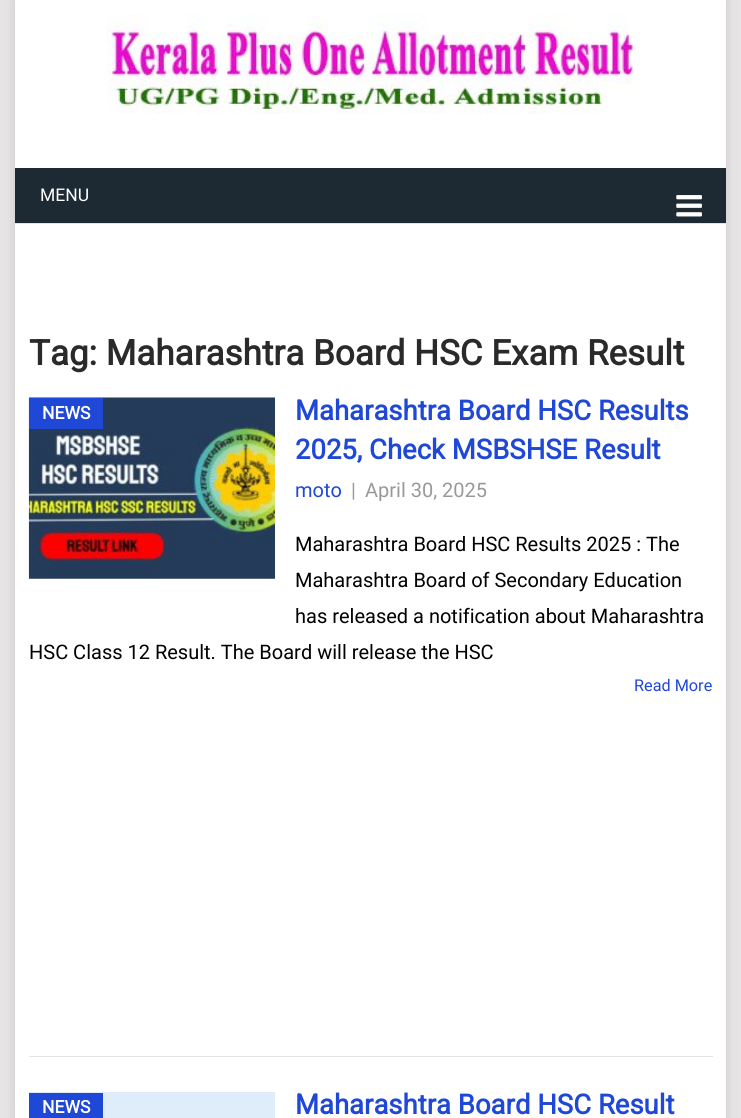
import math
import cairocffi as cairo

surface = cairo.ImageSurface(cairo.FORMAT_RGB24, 741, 1118)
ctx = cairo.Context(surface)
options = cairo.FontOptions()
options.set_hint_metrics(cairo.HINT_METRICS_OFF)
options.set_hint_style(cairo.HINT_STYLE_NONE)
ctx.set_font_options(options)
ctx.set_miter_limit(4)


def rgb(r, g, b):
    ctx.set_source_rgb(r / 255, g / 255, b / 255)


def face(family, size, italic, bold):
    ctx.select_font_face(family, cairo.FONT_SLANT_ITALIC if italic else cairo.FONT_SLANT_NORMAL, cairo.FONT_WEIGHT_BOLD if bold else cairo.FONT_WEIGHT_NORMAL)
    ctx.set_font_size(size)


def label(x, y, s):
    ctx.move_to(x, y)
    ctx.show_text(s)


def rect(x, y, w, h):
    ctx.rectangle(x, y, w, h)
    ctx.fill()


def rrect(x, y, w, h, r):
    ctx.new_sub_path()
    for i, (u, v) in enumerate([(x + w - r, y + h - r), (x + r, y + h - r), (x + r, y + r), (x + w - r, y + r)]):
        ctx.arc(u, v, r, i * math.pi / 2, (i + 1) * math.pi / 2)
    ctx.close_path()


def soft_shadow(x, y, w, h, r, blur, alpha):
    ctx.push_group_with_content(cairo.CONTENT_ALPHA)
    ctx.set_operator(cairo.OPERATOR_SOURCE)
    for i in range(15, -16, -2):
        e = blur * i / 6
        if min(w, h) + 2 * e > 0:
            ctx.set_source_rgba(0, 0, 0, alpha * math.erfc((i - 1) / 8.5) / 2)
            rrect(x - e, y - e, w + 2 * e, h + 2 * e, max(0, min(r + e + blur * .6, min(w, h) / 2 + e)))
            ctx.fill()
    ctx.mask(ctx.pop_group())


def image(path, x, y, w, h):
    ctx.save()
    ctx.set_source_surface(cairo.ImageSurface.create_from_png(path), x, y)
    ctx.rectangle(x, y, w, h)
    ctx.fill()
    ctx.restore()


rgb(231, 229, 230)
ctx.paint()
rgb(50, 50, 50)
soft_shadow(15, 0, 711, 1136, 0, 6, 0.17)
rgb(255, 255, 255)
rect(15, 0, 711, 1118)
image('image0.png', 107, 14, 526, 100)
rgb(29, 41, 51)
rect(15, 168, 711, 55)
face('Roboto', 17.5, 0, 0)
rgb(255, 255, 255)
label(40, 201, 'MENU')
image('image1.png', 676, 195, 26, 22)
rgb(226, 226, 226)
rect(15, 223, 711, 1)
face('Roboto', 35, 0, 1)
rgb(42, 42, 42)
label(29, 365, 'Tag: Maharashtra Board HSC Exam Result')
rgb(226, 226, 226)
rect(29, 1056, 684, 1)
image('image2.png', 28, 397, 247, 182)
rgb(31, 72, 215)
rect(29, 398, 74, 31)
face('Roboto', 17.5, 0, 1)
rgb(255, 255, 255)
label(42, 419, 'NEWS')
face('Roboto', 27.5, 0, 1)
rgb(31, 72, 215)
label(295, 420, 'Maharashtra Board HSC Results')
label(295, 459, '2025, Check MSBSHSE Result')
face('Roboto', 20, 0, 0)
label(295, 497, 'moto')
rgb(153, 153, 153)
label(351, 497, '|')
label(365, 497, 'April 30, 2025')
rgb(0, 0, 0)
label(295, 551, 'Maharashtra Board HSC Results 2025 : The')
label(295, 587, 'Maharashtra Board of Secondary Education')
label(295, 623, 'has released a notification about Maharashtra')
label(29, 659, 'HSC Class 12 Result. The Board will release the HSC')
face('Roboto', 16.25, 0, 0)
rgb(31, 72, 215)
label(634, 691, 'Read More')
rgb(223, 237, 250)
rect(29, 1092, 246, 26)
rgb(31, 72, 215)
rect(29, 1093, 74, 25)
face('Roboto', 17.5, 0, 1)
rgb(255, 255, 255)
label(42, 1113, 'NEWS')
face('Roboto', 27.5, 0, 1)
rgb(31, 72, 215)
label(295, 1114, 'Maharashtra Board HSC Result')
surface.write_to_png('render.png')
